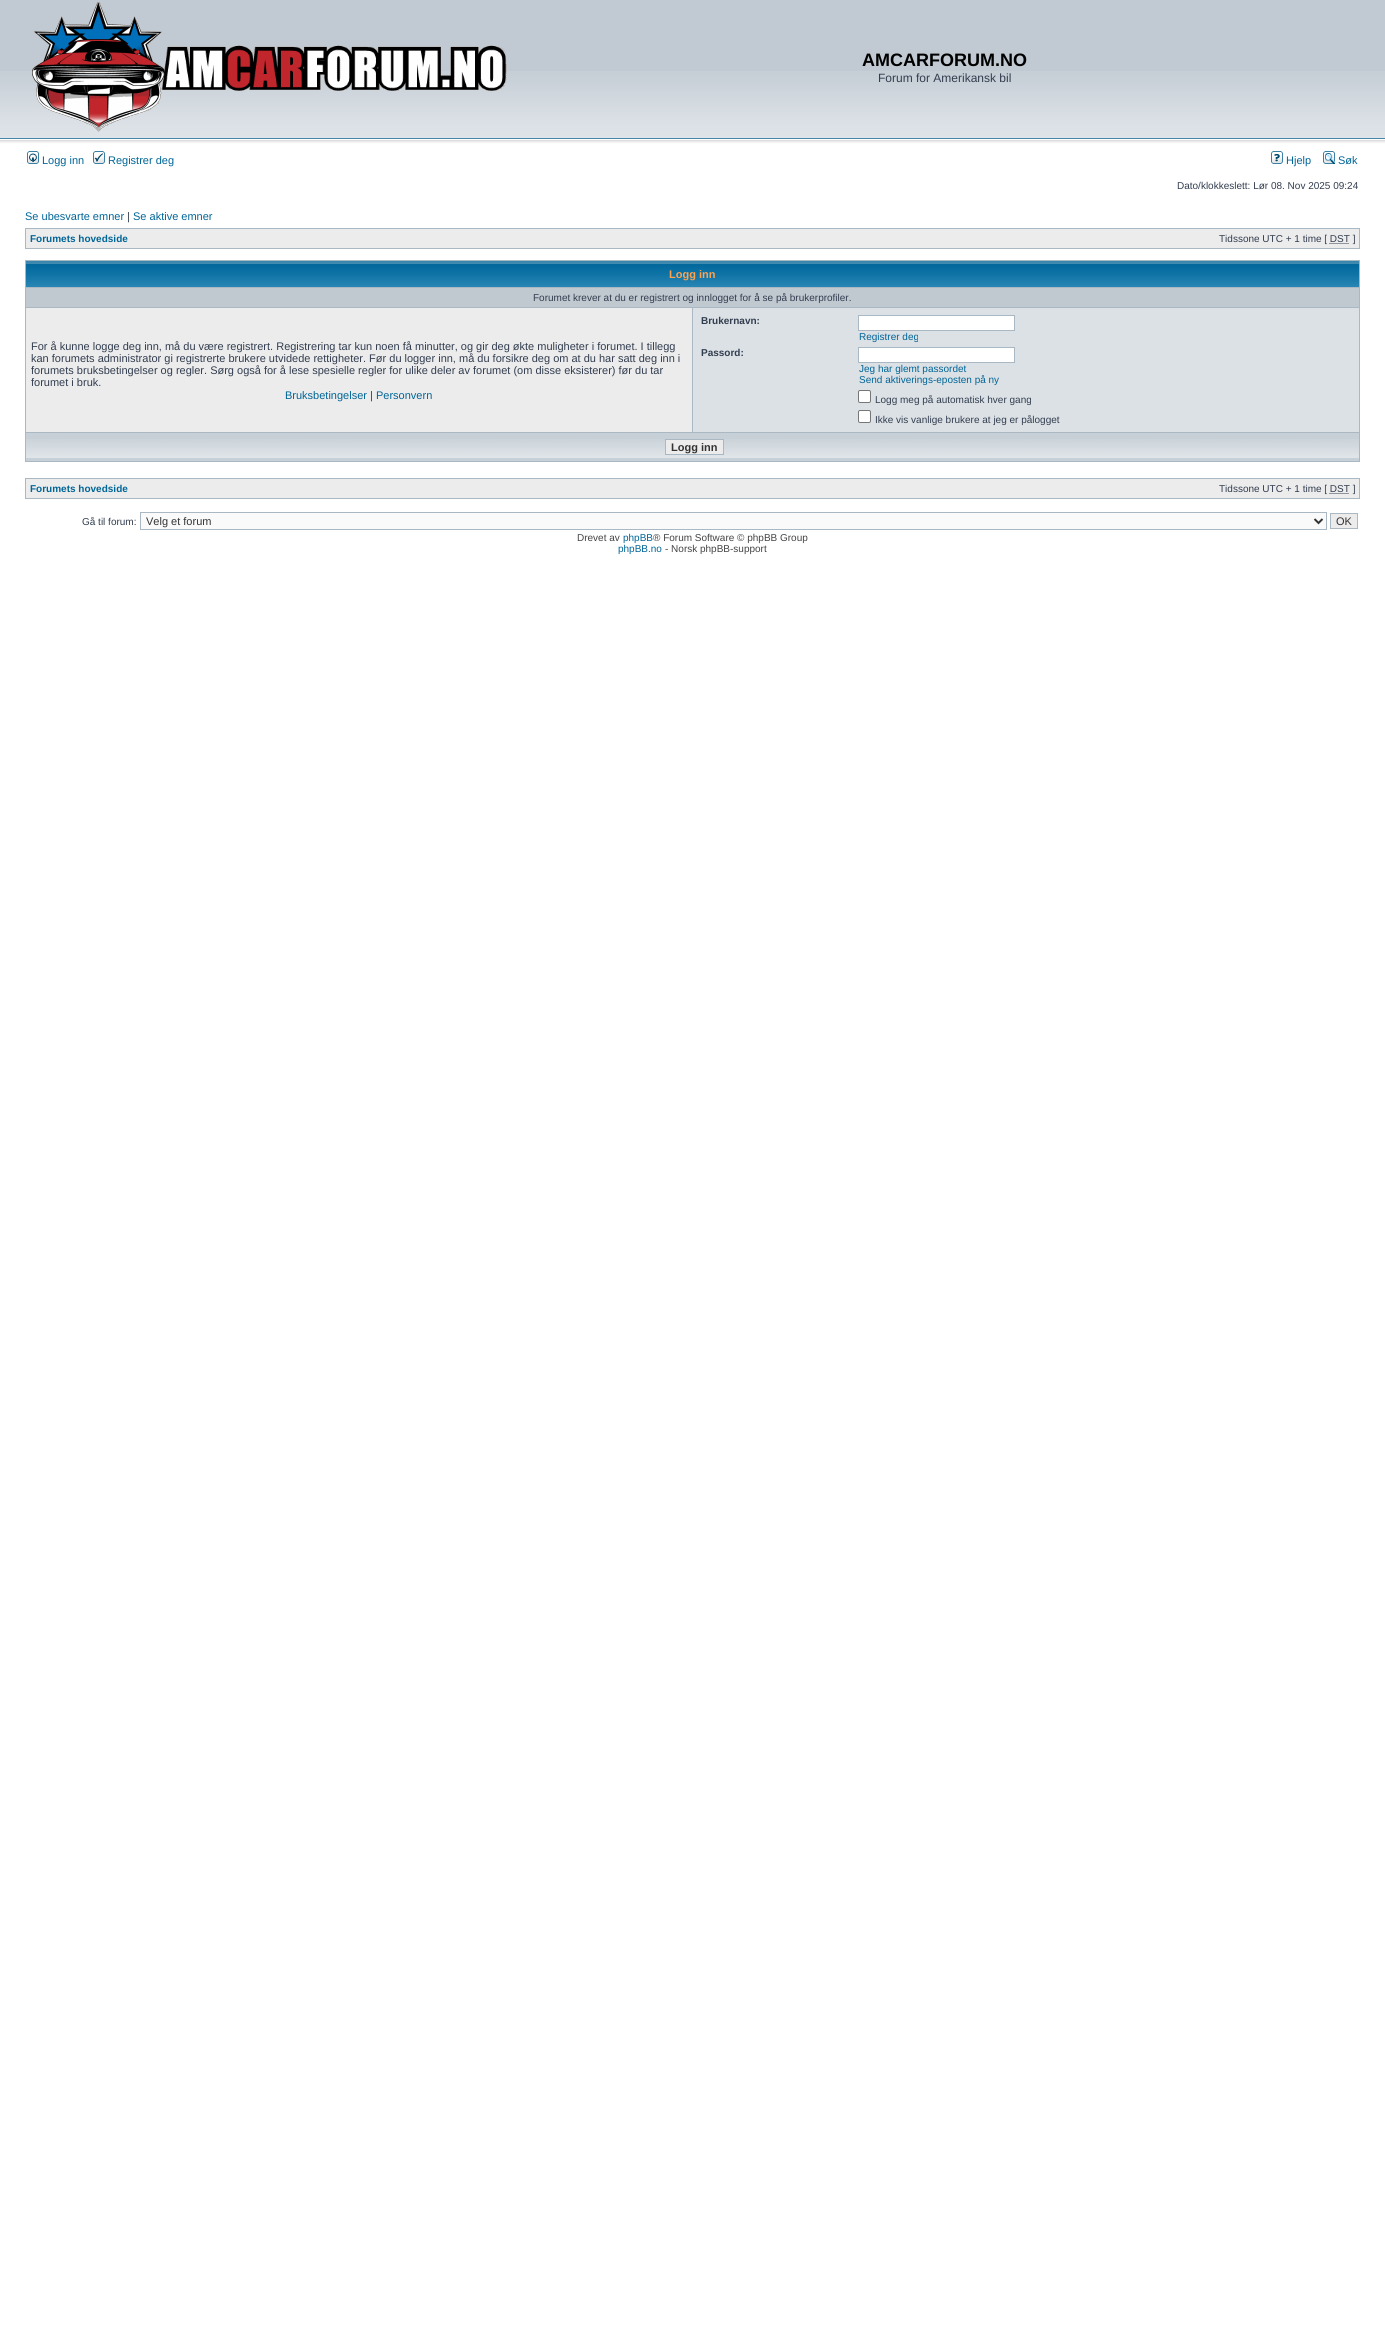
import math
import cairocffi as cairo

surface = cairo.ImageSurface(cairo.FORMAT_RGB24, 1385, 2333)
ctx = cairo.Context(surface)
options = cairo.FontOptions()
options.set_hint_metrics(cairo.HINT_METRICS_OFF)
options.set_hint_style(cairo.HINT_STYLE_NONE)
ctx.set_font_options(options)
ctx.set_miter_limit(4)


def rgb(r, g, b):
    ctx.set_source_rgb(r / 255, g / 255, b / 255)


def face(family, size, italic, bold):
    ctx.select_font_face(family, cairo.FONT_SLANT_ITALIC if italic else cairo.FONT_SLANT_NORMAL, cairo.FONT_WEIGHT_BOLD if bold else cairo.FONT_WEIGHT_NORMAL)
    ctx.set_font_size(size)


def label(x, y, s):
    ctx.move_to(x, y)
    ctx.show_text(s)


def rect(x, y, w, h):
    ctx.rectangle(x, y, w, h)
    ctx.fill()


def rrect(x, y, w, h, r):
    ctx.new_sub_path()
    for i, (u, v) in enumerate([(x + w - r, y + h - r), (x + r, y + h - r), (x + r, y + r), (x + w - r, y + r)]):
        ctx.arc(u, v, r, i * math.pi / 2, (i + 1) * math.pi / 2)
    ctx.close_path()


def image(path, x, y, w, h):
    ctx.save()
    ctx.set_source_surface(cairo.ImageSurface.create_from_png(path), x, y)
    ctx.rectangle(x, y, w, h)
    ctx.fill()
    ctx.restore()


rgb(255, 255, 255)
ctx.paint()
rgb(193, 202, 210)
rect(0, 0, 1385, 71)
image('image0.png', 0, 71, 1385, 78)
image('image1.png', 32, 2, 475, 130)
face('Liberation Sans', 18, 0, 1)
rgb(0, 0, 0)
label(862, 66, 'AMCARFORUM.NO')
face('Liberation Sans', 12, 0, 0)
rgb(50, 61, 79)
label(878, 82, 'Forum for Amerikansk bil')
image('image2.png', 27, 151, 12, 13)
face('Liberation Sans', 11, 0, 0)
rgb(0, 101, 151)
label(42, 164, 'Logg inn')
image('image3.png', 93, 151, 12, 13)
label(108, 164, 'Registrer deg')
image('image4.png', 1271, 151, 12, 13)
label(1286, 164, 'Hjelp')
image('image5.png', 1323, 151, 12, 13)
label(1338, 164, 'Søk')
face('Liberation Sans', 10, 0, 0)
rgb(50, 61, 79)
label(1177, 189, 'Dato/klokkeslett: Lør 08. Nov 2025 09:24')
face('Liberation Sans', 11, 0, 0)
rgb(0, 101, 151)
label(25, 220, 'Se ubesvarte emner')
rgb(50, 61, 79)
label(127, 220, '|')
rgb(0, 101, 151)
label(133, 220, 'Se aktive emner')
rgb(169, 184, 194)
rect(25, 228, 1335, 21)
rgb(236, 236, 236)
rect(26, 229, 1333, 19)
face('Liberation Sans', 10, 0, 1)
rgb(0, 101, 151)
label(30, 242, 'Forumets hovedside')
face('Liberation Sans', 10, 0, 0)
rgb(50, 61, 79)
label(1219, 242, 'Tidssone UTC + 1 time [ DST ]')
ctx.new_path()
ctx.move_to(1329.5, 243.5)
ctx.line_to(1349.5, 243.5)
ctx.set_line_width(1)
ctx.set_dash([1, 1])
ctx.stroke()
rgb(169, 184, 194)
rect(25, 260, 1335, 202)
image('image6.png', 26, 261, 1333, 26)
face('Liberation Sans', 11, 0, 1)
rgb(255, 163, 79)
label(669, 278, 'Logg inn')
rgb(192, 200, 208)
rect(26, 288, 1333, 19)
face('Liberation Sans', 10, 0, 0)
rgb(50, 61, 79)
label(533, 301, 'Forumet krever at du er registrert og innlogget for å se på brukerprofiler.')
rgb(236, 236, 236)
rect(26, 308, 666, 124)
face('Liberation Sans', 11, 0, 0)
rgb(50, 61, 79)
label(31, 350, 'For å kunne logge deg inn, må du være registrert. Registrering tar kun noen få minutter, og gir deg økte muligheter i forumet. I tillegg')
label(31, 362, 'kan forumets administrator gi registrerte brukere utvidede rettigheter. Før du logger inn, må du forsikre deg om at du har satt deg inn i')
label(31, 374, 'forumets bruksbetingelser og regler. Sørg også for å lese spesielle regler for ulike deler av forumet (om disse eksisterer) før du tar')
label(31, 386, 'forumet i bruk.')
rgb(0, 101, 151)
label(285, 399, 'Bruksbetingelser')
rgb(50, 61, 79)
label(370, 399, '|')
rgb(0, 101, 151)
label(376, 399, 'Personvern')
rgb(220, 225, 229)
rect(693, 308, 666, 124)
face('Liberation Sans', 10, 0, 1)
rgb(50, 61, 79)
label(701, 324, 'Brukernavn:')
rgb(255, 255, 255)
ctx.rectangle(858.5, 315.5, 156, 15)
ctx.fill_preserve()
rgb(169, 184, 194)
ctx.set_dash([])
ctx.stroke()
face('Liberation Sans', 10, 0, 0)
rgb(0, 101, 151)
label(859, 340, 'Registrer deg')
face('Liberation Sans', 10, 0, 1)
rgb(50, 61, 79)
label(701, 356, 'Passord:')
rgb(255, 255, 255)
ctx.rectangle(858.5, 347.5, 156, 15)
ctx.fill_preserve()
rgb(169, 184, 194)
ctx.stroke()
face('Liberation Sans', 10, 0, 0)
rgb(0, 101, 151)
label(859, 372, 'Jeg har glemt passordet')
label(859, 383, 'Send aktiverings-eposten på ny')
rgb(255, 255, 255)
rrect(858.5, 390.5, 12, 12, 1.5)
ctx.fill_preserve()
rgb(118, 118, 118)
ctx.stroke()
rgb(50, 61, 79)
label(875, 403, 'Logg meg på automatisk hver gang')
rgb(255, 255, 255)
rrect(858.5, 410.5, 12, 12, 1.5)
ctx.fill_preserve()
rgb(118, 118, 118)
ctx.stroke()
rgb(50, 61, 79)
label(875, 423, 'Ikke vis vanlige brukere at jeg er pålogget')
rgb(199, 208, 215)
rect(26, 433, 1333, 28)
image('image7.png', 26, 439, 1333, 19)
rgb(236, 236, 236)
ctx.rectangle(665.5, 439.5, 58, 15)
ctx.fill_preserve()
rgb(169, 184, 194)
ctx.stroke()
face('Liberation Sans', 11, 0, 1)
rgb(51, 51, 51)
label(671, 451, 'Logg inn')
rgb(169, 184, 194)
rect(25, 478, 1335, 21)
rgb(236, 236, 236)
rect(26, 479, 1333, 19)
face('Liberation Sans', 10, 0, 1)
rgb(0, 101, 151)
label(30, 492, 'Forumets hovedside')
face('Liberation Sans', 10, 0, 0)
rgb(50, 61, 79)
label(1219, 492, 'Tidssone UTC + 1 time [ DST ]')
ctx.new_path()
ctx.move_to(1329.5, 493.5)
ctx.line_to(1349.5, 493.5)
ctx.set_dash([1, 1])
ctx.stroke()
label(82, 525, 'Gå til forum:')
rgb(250, 250, 250)
ctx.rectangle(140.5, 512.5, 1186, 17)
ctx.fill_preserve()
rgb(169, 184, 194)
ctx.set_dash([])
ctx.stroke()
ctx.new_path()
ctx.move_to(1314.5, 519)
ctx.line_to(1318.5, 523)
ctx.line_to(1322.5, 519)
rgb(51, 51, 51)
ctx.set_line_width(2)
ctx.stroke()
face('Liberation Sans', 11, 0, 0)
label(146, 525, 'Velg et forum')
rgb(236, 236, 236)
ctx.rectangle(1330.5, 513.5, 27, 15)
ctx.fill_preserve()
rgb(169, 184, 194)
ctx.set_line_width(1)
ctx.stroke()
rgb(51, 51, 51)
label(1336, 525, 'OK')
face('Liberation Sans', 10, 0, 0)
rgb(68, 68, 68)
label(577, 541, 'Drevet av')
rgb(0, 101, 151)
label(623, 541, 'phpBB')
rgb(68, 68, 68)
label(653, 541, '® Forum Software © phpBB Group')
rgb(0, 101, 151)
label(618, 552, 'phpBB.no')
rgb(68, 68, 68)
label(665, 552, '- Norsk phpBB-support')
surface.write_to_png('render.png')
